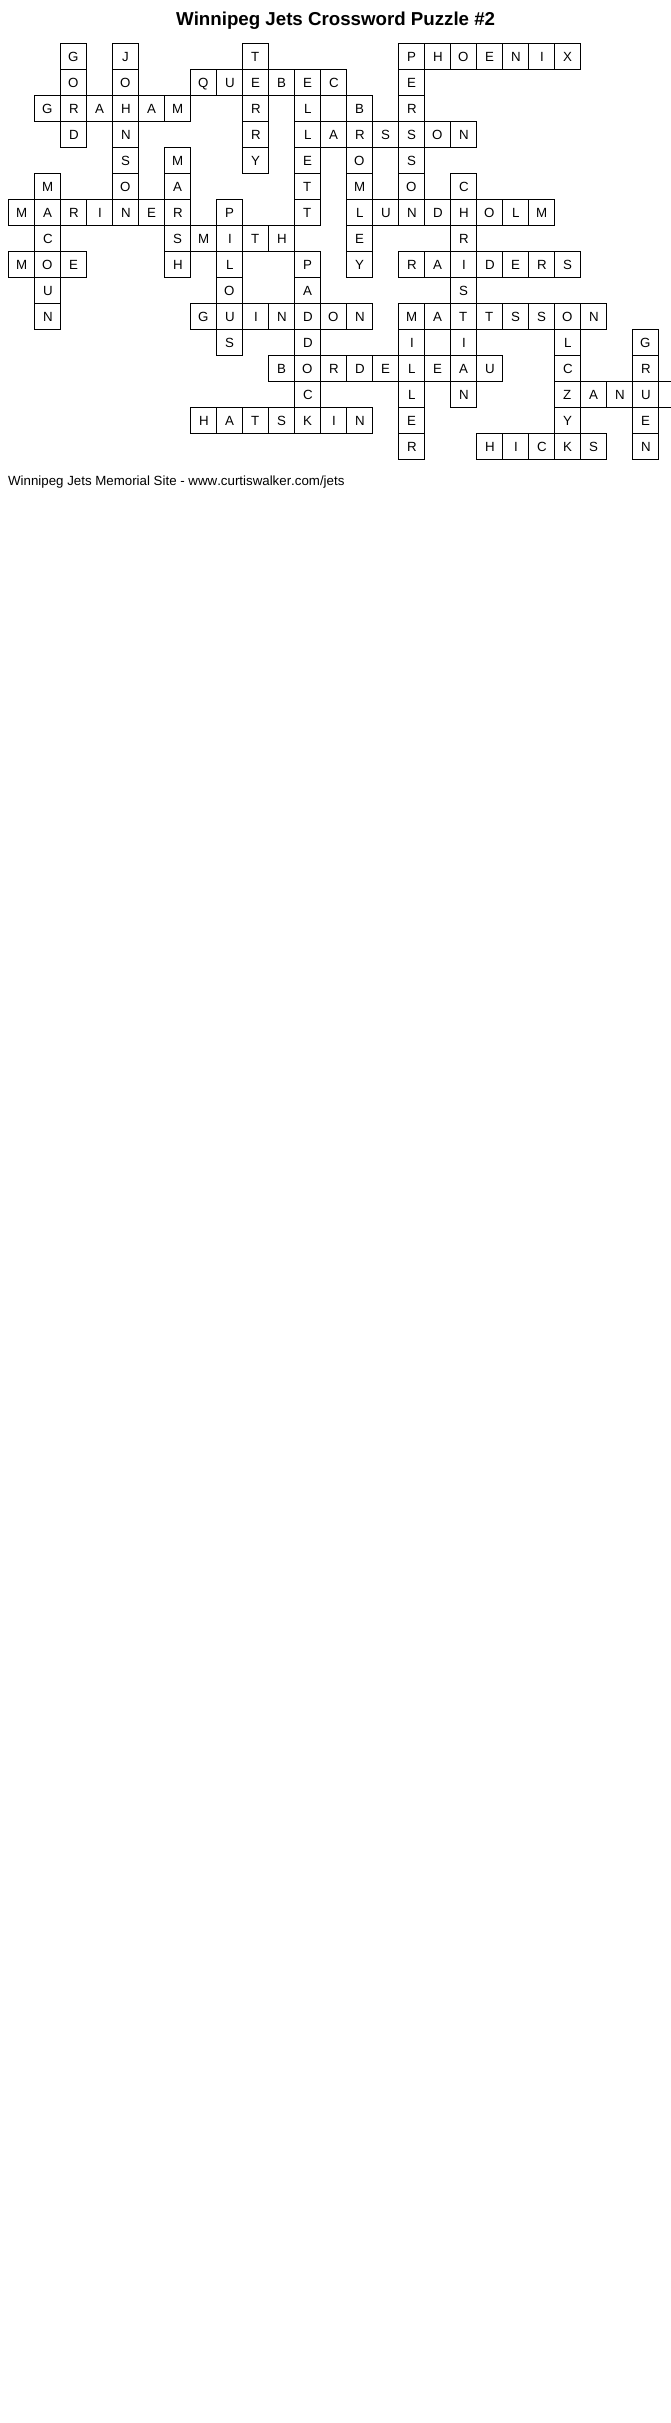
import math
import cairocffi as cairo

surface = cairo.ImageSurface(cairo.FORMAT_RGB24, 671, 2423)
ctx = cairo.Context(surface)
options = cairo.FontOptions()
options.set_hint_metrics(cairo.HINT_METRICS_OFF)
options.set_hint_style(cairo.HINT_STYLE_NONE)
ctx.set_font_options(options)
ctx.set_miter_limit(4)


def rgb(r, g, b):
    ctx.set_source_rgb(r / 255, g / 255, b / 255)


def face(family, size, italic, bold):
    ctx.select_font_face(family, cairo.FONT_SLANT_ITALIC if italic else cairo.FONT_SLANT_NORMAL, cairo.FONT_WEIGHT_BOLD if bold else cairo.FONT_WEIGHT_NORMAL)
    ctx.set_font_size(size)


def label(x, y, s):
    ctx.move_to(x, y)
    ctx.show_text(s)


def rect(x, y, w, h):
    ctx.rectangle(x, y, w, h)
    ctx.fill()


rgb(255, 255, 255)
ctx.paint()
face('Liberation Sans', 18.7, 0, 1)
rgb(0, 0, 0)
label(176, 25, 'Winnipeg Jets Crossword Puzzle #2')
rect(60, 43, 27, 1)
rect(112, 43, 27, 1)
rect(242, 43, 27, 1)
rect(398, 43, 183, 1)
rect(60, 44, 1, 51)
face('Liberation Sans', 13.3, 0, 0)
label(68, 61, 'G')
rect(86, 44, 1, 25)
rect(112, 44, 1, 51)
label(122, 61, 'J')
rect(138, 44, 1, 25)
rect(242, 44, 1, 25)
label(251, 61, 'T')
rect(268, 44, 1, 25)
rect(398, 44, 1, 77)
label(407, 61, 'P')
rect(424, 44, 1, 25)
label(433, 61, 'H')
rect(450, 44, 1, 25)
label(458, 61, 'O')
rect(476, 44, 1, 25)
label(485, 61, 'E')
rect(502, 44, 1, 25)
label(511, 61, 'N')
rect(528, 44, 1, 25)
label(540, 61, 'I')
rect(554, 44, 1, 25)
label(563, 61, 'X')
rect(580, 44, 1, 25)
rect(61, 69, 26, 1)
rect(113, 69, 26, 1)
rect(190, 69, 157, 1)
rect(399, 69, 182, 1)
label(68, 87, 'O')
rect(86, 70, 1, 25)
label(120, 87, 'O')
rect(138, 70, 1, 25)
rect(190, 70, 1, 25)
label(198, 87, 'Q')
rect(216, 70, 1, 25)
label(225, 87, 'U')
rect(242, 70, 1, 25)
label(251, 87, 'E')
rect(268, 70, 1, 25)
label(277, 87, 'B')
rect(294, 70, 1, 25)
label(303, 87, 'E')
rect(320, 70, 1, 25)
label(329, 87, 'C')
rect(346, 70, 1, 25)
label(407, 87, 'E')
rect(424, 70, 1, 25)
rect(34, 95, 339, 1)
rect(399, 95, 26, 1)
rect(34, 96, 1, 26)
label(42, 113, 'G')
rect(60, 96, 1, 25)
label(69, 113, 'R')
rect(86, 96, 1, 25)
label(95, 113, 'A')
rect(112, 96, 1, 25)
label(121, 113, 'H')
rect(138, 96, 1, 25)
label(147, 113, 'A')
rect(164, 96, 1, 25)
label(172, 113, 'M')
rect(190, 96, 1, 25)
rect(242, 96, 1, 78)
label(251, 113, 'R')
rect(268, 96, 1, 25)
rect(294, 96, 1, 129)
label(304, 113, 'L')
rect(320, 96, 1, 25)
rect(346, 96, 1, 25)
label(355, 113, 'B')
rect(372, 96, 1, 25)
label(407, 113, 'R')
rect(424, 96, 1, 25)
rect(35, 121, 156, 1)
rect(243, 121, 26, 1)
rect(295, 121, 182, 1)
rect(60, 122, 1, 26)
label(69, 139, 'D')
rect(86, 122, 1, 25)
rect(112, 122, 1, 77)
label(121, 139, 'N')
rect(138, 122, 1, 25)
label(251, 139, 'R')
rect(268, 122, 1, 25)
label(304, 139, 'L')
rect(320, 122, 1, 25)
label(329, 139, 'A')
rect(346, 122, 1, 25)
label(355, 139, 'R')
rect(372, 122, 1, 25)
label(381, 139, 'S')
rect(398, 122, 1, 25)
label(407, 139, 'S')
rect(424, 122, 1, 25)
label(432, 139, 'O')
rect(450, 122, 1, 25)
label(459, 139, 'N')
rect(476, 122, 1, 25)
rect(61, 147, 26, 1)
rect(113, 147, 26, 1)
rect(164, 147, 27, 1)
rect(243, 147, 26, 1)
rect(295, 147, 182, 1)
label(121, 165, 'S')
rect(138, 148, 1, 25)
rect(164, 148, 1, 51)
label(172, 165, 'M')
rect(190, 148, 1, 25)
label(251, 165, 'Y')
rect(268, 148, 1, 25)
label(303, 165, 'E')
rect(320, 148, 1, 25)
rect(346, 148, 1, 130)
label(354, 165, 'O')
rect(372, 148, 1, 25)
rect(398, 148, 1, 51)
label(407, 165, 'S')
rect(424, 148, 1, 25)
rect(34, 173, 27, 1)
rect(113, 173, 26, 1)
rect(165, 173, 26, 1)
rect(243, 173, 26, 1)
rect(295, 173, 26, 1)
rect(347, 173, 26, 1)
rect(399, 173, 26, 1)
rect(450, 173, 27, 1)
rect(34, 174, 1, 25)
label(42, 191, 'M')
rect(60, 174, 1, 25)
label(120, 191, 'O')
rect(138, 174, 1, 25)
label(173, 191, 'A')
rect(190, 174, 1, 25)
label(303, 191, 'T')
rect(320, 174, 1, 25)
label(354, 191, 'M')
rect(372, 174, 1, 25)
label(406, 191, 'O')
rect(424, 174, 1, 25)
rect(450, 174, 1, 25)
label(459, 191, 'C')
rect(476, 174, 1, 25)
rect(8, 199, 183, 1)
rect(216, 199, 27, 1)
rect(295, 199, 26, 1)
rect(347, 199, 208, 1)
rect(8, 200, 1, 26)
label(16, 217, 'M')
rect(34, 200, 1, 25)
label(43, 217, 'A')
rect(60, 200, 1, 25)
label(69, 217, 'R')
rect(86, 200, 1, 25)
label(98, 217, 'I')
rect(112, 200, 1, 25)
label(121, 217, 'N')
rect(138, 200, 1, 25)
label(147, 217, 'E')
rect(164, 200, 1, 25)
label(173, 217, 'R')
rect(190, 200, 1, 25)
rect(216, 200, 1, 25)
label(225, 217, 'P')
rect(242, 200, 1, 25)
label(303, 217, 'T')
rect(320, 200, 1, 25)
label(356, 217, 'L')
rect(372, 200, 1, 25)
label(381, 217, 'U')
rect(398, 200, 1, 25)
label(407, 217, 'N')
rect(424, 200, 1, 25)
label(433, 217, 'D')
rect(450, 200, 1, 25)
label(459, 217, 'H')
rect(476, 200, 1, 25)
label(484, 217, 'O')
rect(502, 200, 1, 25)
label(512, 217, 'L')
rect(528, 200, 1, 25)
label(536, 217, 'M')
rect(554, 200, 1, 25)
rect(9, 225, 312, 1)
rect(347, 225, 208, 1)
rect(34, 226, 1, 25)
label(43, 243, 'C')
rect(60, 226, 1, 25)
rect(164, 226, 1, 52)
label(173, 243, 'S')
rect(190, 226, 1, 25)
label(198, 243, 'M')
rect(216, 226, 1, 25)
label(228, 243, 'I')
rect(242, 226, 1, 25)
label(251, 243, 'T')
rect(268, 226, 1, 25)
label(277, 243, 'H')
rect(294, 226, 1, 25)
label(355, 243, 'E')
rect(372, 226, 1, 25)
rect(450, 226, 1, 25)
label(459, 243, 'R')
rect(476, 226, 1, 25)
rect(8, 251, 79, 1)
rect(165, 251, 156, 1)
rect(347, 251, 26, 1)
rect(398, 251, 183, 1)
rect(8, 252, 1, 26)
label(16, 269, 'M')
rect(34, 252, 1, 25)
label(42, 269, 'O')
rect(60, 252, 1, 25)
label(69, 269, 'E')
rect(86, 252, 1, 25)
label(173, 269, 'H')
rect(190, 252, 1, 25)
rect(216, 252, 1, 51)
label(226, 269, 'L')
rect(242, 252, 1, 25)
rect(294, 252, 1, 51)
label(303, 269, 'P')
rect(320, 252, 1, 25)
label(355, 269, 'Y')
rect(372, 252, 1, 25)
rect(398, 252, 1, 26)
label(407, 269, 'R')
rect(424, 252, 1, 25)
label(433, 269, 'A')
rect(450, 252, 1, 25)
label(462, 269, 'I')
rect(476, 252, 1, 25)
label(485, 269, 'D')
rect(502, 252, 1, 25)
label(511, 269, 'E')
rect(528, 252, 1, 25)
label(537, 269, 'R')
rect(554, 252, 1, 25)
label(563, 269, 'S')
rect(580, 252, 1, 25)
rect(9, 277, 78, 1)
rect(165, 277, 26, 1)
rect(217, 277, 26, 1)
rect(295, 277, 26, 1)
rect(347, 277, 26, 1)
rect(399, 277, 182, 1)
rect(34, 278, 1, 52)
label(43, 295, 'U')
rect(60, 278, 1, 25)
label(224, 295, 'O')
rect(242, 278, 1, 25)
label(303, 295, 'A')
rect(320, 278, 1, 25)
rect(450, 278, 1, 25)
label(459, 295, 'S')
rect(476, 278, 1, 25)
rect(35, 303, 26, 1)
rect(190, 303, 183, 1)
rect(398, 303, 209, 1)
label(43, 321, 'N')
rect(60, 304, 1, 25)
rect(190, 304, 1, 26)
label(198, 321, 'G')
rect(216, 304, 1, 25)
label(225, 321, 'U')
rect(242, 304, 1, 25)
label(254, 321, 'I')
rect(268, 304, 1, 25)
label(277, 321, 'N')
rect(294, 304, 1, 25)
label(303, 321, 'D')
rect(320, 304, 1, 25)
label(328, 321, 'O')
rect(346, 304, 1, 25)
label(355, 321, 'N')
rect(372, 304, 1, 25)
rect(398, 304, 1, 51)
label(406, 321, 'M')
rect(424, 304, 1, 25)
label(433, 321, 'A')
rect(450, 304, 1, 25)
label(459, 321, 'T')
rect(476, 304, 1, 25)
label(485, 321, 'T')
rect(502, 304, 1, 25)
label(511, 321, 'S')
rect(528, 304, 1, 25)
label(537, 321, 'S')
rect(554, 304, 1, 25)
label(562, 321, 'O')
rect(580, 304, 1, 25)
label(589, 321, 'N')
rect(606, 304, 1, 25)
rect(35, 329, 26, 1)
rect(191, 329, 182, 1)
rect(399, 329, 208, 1)
rect(632, 329, 27, 1)
rect(216, 330, 1, 26)
label(225, 347, 'S')
rect(242, 330, 1, 25)
rect(294, 330, 1, 25)
label(303, 347, 'D')
rect(320, 330, 1, 25)
label(410, 347, 'I')
rect(424, 330, 1, 25)
rect(450, 330, 1, 25)
label(462, 347, 'I')
rect(476, 330, 1, 25)
rect(554, 330, 1, 103)
label(564, 347, 'L')
rect(580, 330, 1, 25)
rect(632, 330, 1, 51)
label(640, 347, 'G')
rect(658, 330, 1, 25)
rect(217, 355, 26, 1)
rect(268, 355, 235, 1)
rect(555, 355, 26, 1)
rect(633, 355, 26, 1)
rect(268, 356, 1, 26)
label(277, 373, 'B')
rect(294, 356, 1, 25)
label(302, 373, 'O')
rect(320, 356, 1, 25)
label(329, 373, 'R')
rect(346, 356, 1, 25)
label(355, 373, 'D')
rect(372, 356, 1, 25)
label(381, 373, 'E')
rect(398, 356, 1, 25)
label(408, 373, 'L')
rect(424, 356, 1, 25)
label(433, 373, 'E')
rect(450, 356, 1, 25)
label(459, 373, 'A')
rect(476, 356, 1, 25)
label(485, 373, 'U')
rect(502, 356, 1, 25)
label(563, 373, 'C')
rect(580, 356, 1, 25)
label(641, 373, 'R')
rect(658, 356, 1, 25)
rect(269, 381, 234, 1)
rect(555, 381, 116, 1)
rect(294, 382, 1, 25)
label(303, 399, 'C')
rect(320, 382, 1, 25)
rect(398, 382, 1, 78)
label(408, 399, 'L')
rect(424, 382, 1, 25)
rect(450, 382, 1, 26)
label(459, 399, 'N')
rect(476, 382, 1, 25)
label(563, 399, 'Z')
rect(580, 382, 1, 25)
label(589, 399, 'A')
rect(606, 382, 1, 25)
label(615, 399, 'N')
rect(632, 382, 1, 25)
label(641, 399, 'U')
rect(658, 382, 1, 25)
rect(190, 407, 183, 1)
rect(399, 407, 26, 1)
rect(451, 407, 26, 1)
rect(555, 407, 116, 1)
rect(190, 408, 1, 26)
label(199, 425, 'H')
rect(216, 408, 1, 25)
label(225, 425, 'A')
rect(242, 408, 1, 25)
label(251, 425, 'T')
rect(268, 408, 1, 25)
label(277, 425, 'S')
rect(294, 408, 1, 25)
label(303, 425, 'K')
rect(320, 408, 1, 25)
label(332, 425, 'I')
rect(346, 408, 1, 25)
label(355, 425, 'N')
rect(372, 408, 1, 25)
label(407, 425, 'E')
rect(424, 408, 1, 25)
label(563, 425, 'Y')
rect(580, 408, 1, 25)
rect(632, 408, 1, 52)
label(641, 425, 'E')
rect(658, 408, 1, 25)
rect(191, 433, 182, 1)
rect(399, 433, 26, 1)
rect(476, 433, 131, 1)
rect(633, 433, 26, 1)
label(407, 451, 'R')
rect(424, 434, 1, 25)
rect(476, 434, 1, 26)
label(485, 451, 'H')
rect(502, 434, 1, 25)
label(514, 451, 'I')
rect(528, 434, 1, 25)
label(537, 451, 'C')
rect(554, 434, 1, 25)
label(563, 451, 'K')
rect(580, 434, 1, 25)
label(589, 451, 'S')
rect(606, 434, 1, 25)
label(641, 451, 'N')
rect(658, 434, 1, 25)
rect(399, 459, 26, 1)
rect(477, 459, 130, 1)
rect(633, 459, 26, 1)
label(8, 485, 'Winnipeg Jets Memorial Site - www.curtiswalker.com/jets')
surface.write_to_png('render.png')
